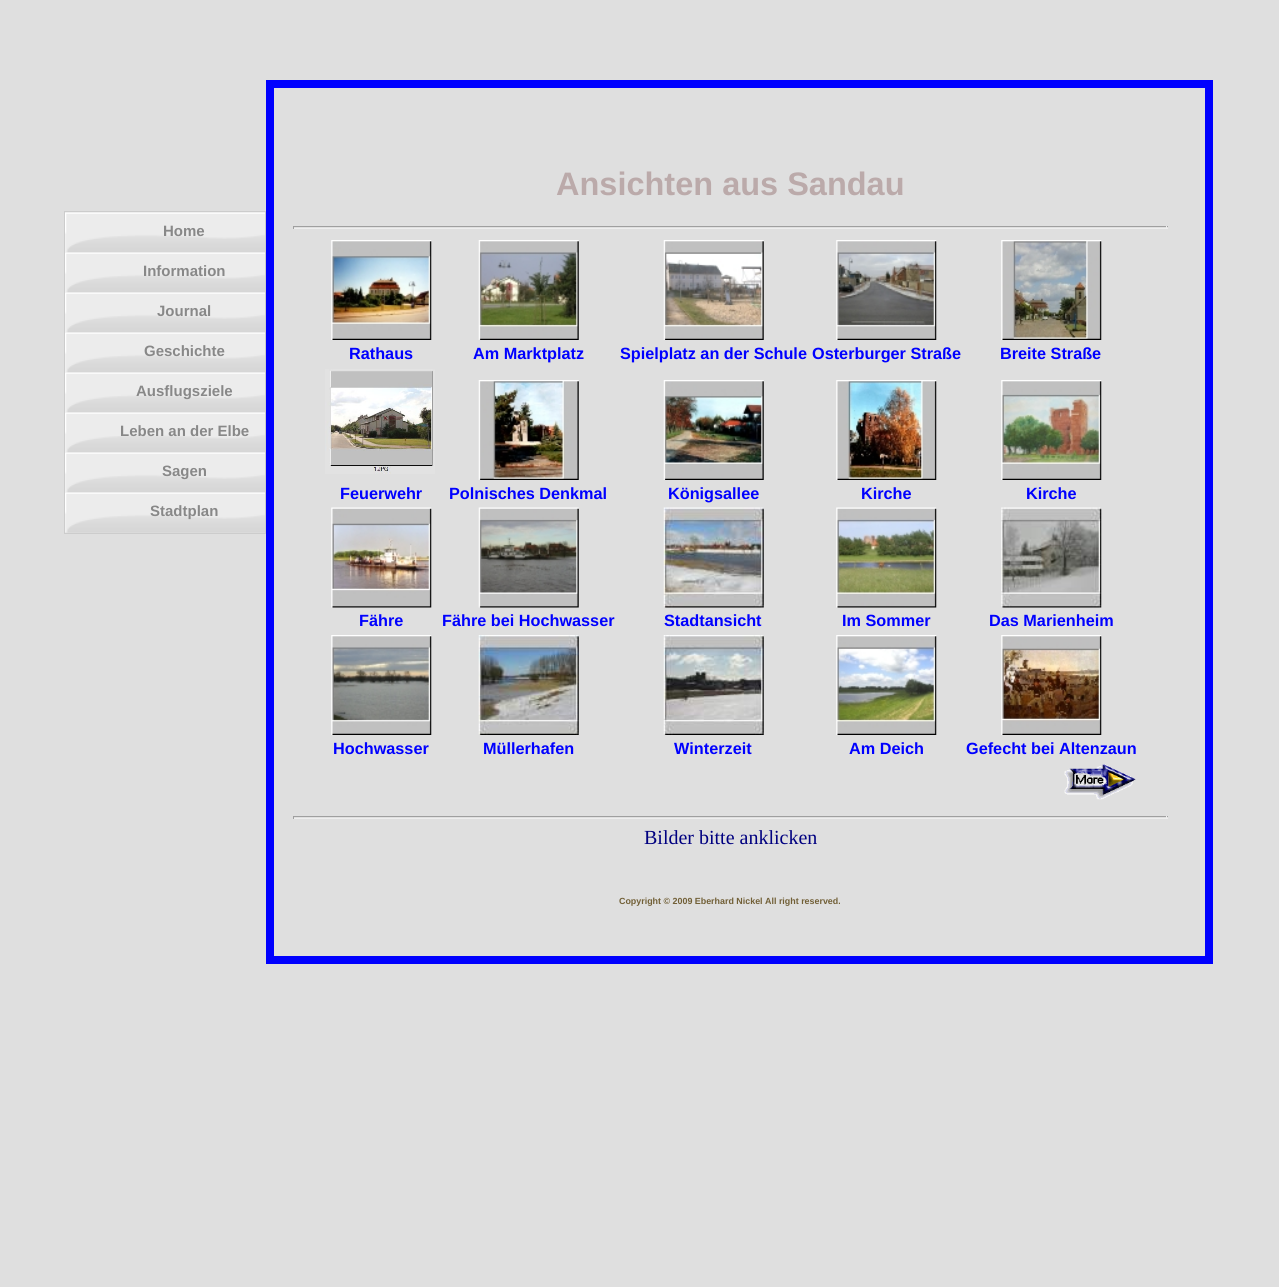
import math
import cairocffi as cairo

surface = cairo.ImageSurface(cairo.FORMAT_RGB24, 1279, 1287)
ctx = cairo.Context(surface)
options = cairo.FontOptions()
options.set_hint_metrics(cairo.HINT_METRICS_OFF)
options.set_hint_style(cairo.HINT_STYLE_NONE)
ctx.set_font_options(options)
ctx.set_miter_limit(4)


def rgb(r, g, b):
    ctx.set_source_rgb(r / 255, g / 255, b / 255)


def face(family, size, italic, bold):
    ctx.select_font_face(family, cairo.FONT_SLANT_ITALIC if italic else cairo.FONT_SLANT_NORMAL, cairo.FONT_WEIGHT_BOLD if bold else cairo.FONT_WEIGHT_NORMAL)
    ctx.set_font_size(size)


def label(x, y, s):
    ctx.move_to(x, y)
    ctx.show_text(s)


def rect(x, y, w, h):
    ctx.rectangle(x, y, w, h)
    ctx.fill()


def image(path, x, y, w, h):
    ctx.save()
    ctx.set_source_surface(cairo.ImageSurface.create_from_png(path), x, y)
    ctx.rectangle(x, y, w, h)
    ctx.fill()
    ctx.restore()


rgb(223, 223, 223)
ctx.paint()
ctx.rectangle(64.5, 211.5, 201, 322)
rgb(204, 204, 204)
ctx.set_line_width(1)
ctx.stroke()
image('image0.png', 65, 212, 200, 41)
face('Liberation Sans', 15, 0, 1)
rgb(136, 136, 136)
label(163, 236, 'Home')
image('image1.png', 65, 252, 200, 41)
label(143, 276, 'Information')
image('image2.png', 65, 292, 200, 41)
label(157, 316, 'Journal')
image('image1.png', 65, 332, 200, 41)
label(144, 356, 'Geschichte')
image('image1.png', 65, 372, 200, 41)
label(136, 396, 'Ausflugsziele')
image('image1.png', 65, 412, 200, 41)
label(120, 436, 'Leben an der Elbe')
image('image1.png', 65, 452, 200, 41)
label(162, 476, 'Sagen')
image('image1.png', 65, 492, 200, 41)
label(150, 516, 'Stadtplan')
ctx.rectangle(270, 84, 939, 876)
rgb(0, 0, 255)
ctx.set_line_width(8)
ctx.stroke()
face('Liberation Sans', 32.5, 0, 1)
rgb(187, 170, 170)
label(556, 195, 'Ansichten aus Sandau')
rgb(159, 159, 159)
rect(293, 226, 875, 1)
rgb(238, 238, 238)
rect(1166, 226, 1, 3)
rect(293, 228, 875, 1)
rgb(159, 159, 159)
rect(293, 226, 1, 3)
image('image3.png', 331, 240, 101, 100)
face('Liberation Sans', 16.25, 0, 1)
rgb(0, 0, 255)
label(349, 359, 'Rathaus')
image('image4.png', 478, 240, 101, 100)
label(473, 359, 'Am Marktplatz')
image('image5.png', 663, 240, 101, 100)
label(620, 359, 'Spielplatz an der Schule')
image('image6.png', 836, 240, 101, 100)
label(812, 359, 'Osterburger Straße')
image('image7.png', 1001, 240, 101, 100)
label(1000, 359, 'Breite Straße')
image('image8.png', 325, 369, 110, 105)
label(340, 499, 'Feuerwehr')
image('image9.png', 478, 380, 101, 100)
label(449, 499, 'Polnisches Denkmal')
image('image10.png', 663, 380, 101, 100)
label(668, 499, 'Königsallee')
image('image11.png', 836, 380, 101, 100)
label(861, 499, 'Kirche')
image('image12.png', 1001, 380, 101, 100)
label(1026, 499, 'Kirche')
image('image13.png', 331, 507, 101, 101)
label(359, 626, 'Fähre')
image('image14.png', 478, 507, 101, 101)
label(442, 626, 'Fähre bei Hochwasser')
image('image15.png', 663, 507, 101, 101)
label(664, 626, 'Stadtansicht')
image('image16.png', 836, 507, 101, 101)
label(842, 626, 'Im Sommer')
image('image17.png', 1001, 507, 101, 101)
label(989, 626, 'Das Marienheim')
image('image18.png', 331, 635, 101, 100)
label(333, 754, 'Hochwasser')
image('image19.png', 478, 635, 101, 100)
label(483, 754, 'Müllerhafen')
image('image20.png', 663, 635, 101, 100)
label(674, 754, 'Winterzeit')
image('image21.png', 836, 635, 101, 100)
label(849, 754, 'Am Deich')
image('image22.png', 1001, 635, 101, 100)
label(966, 754, 'Gefecht bei Altenzaun')
image('image23.png', 1064, 764, 72, 36)
rgb(159, 159, 159)
rect(293, 816, 875, 1)
rgb(238, 238, 238)
rect(1166, 816, 1, 3)
rect(293, 818, 875, 1)
rgb(159, 159, 159)
rect(293, 816, 1, 3)
face('Liberation Serif', 20, 0, 0)
rgb(0, 0, 128)
label(644, 844, 'Bilder bitte anklicken')
face('Liberation Sans', 8.9, 0, 1)
rgb(113, 95, 54)
label(619, 904, 'Copyright © 2009 Eberhard Nickel All right reserved.')
surface.write_to_png('render.png')
